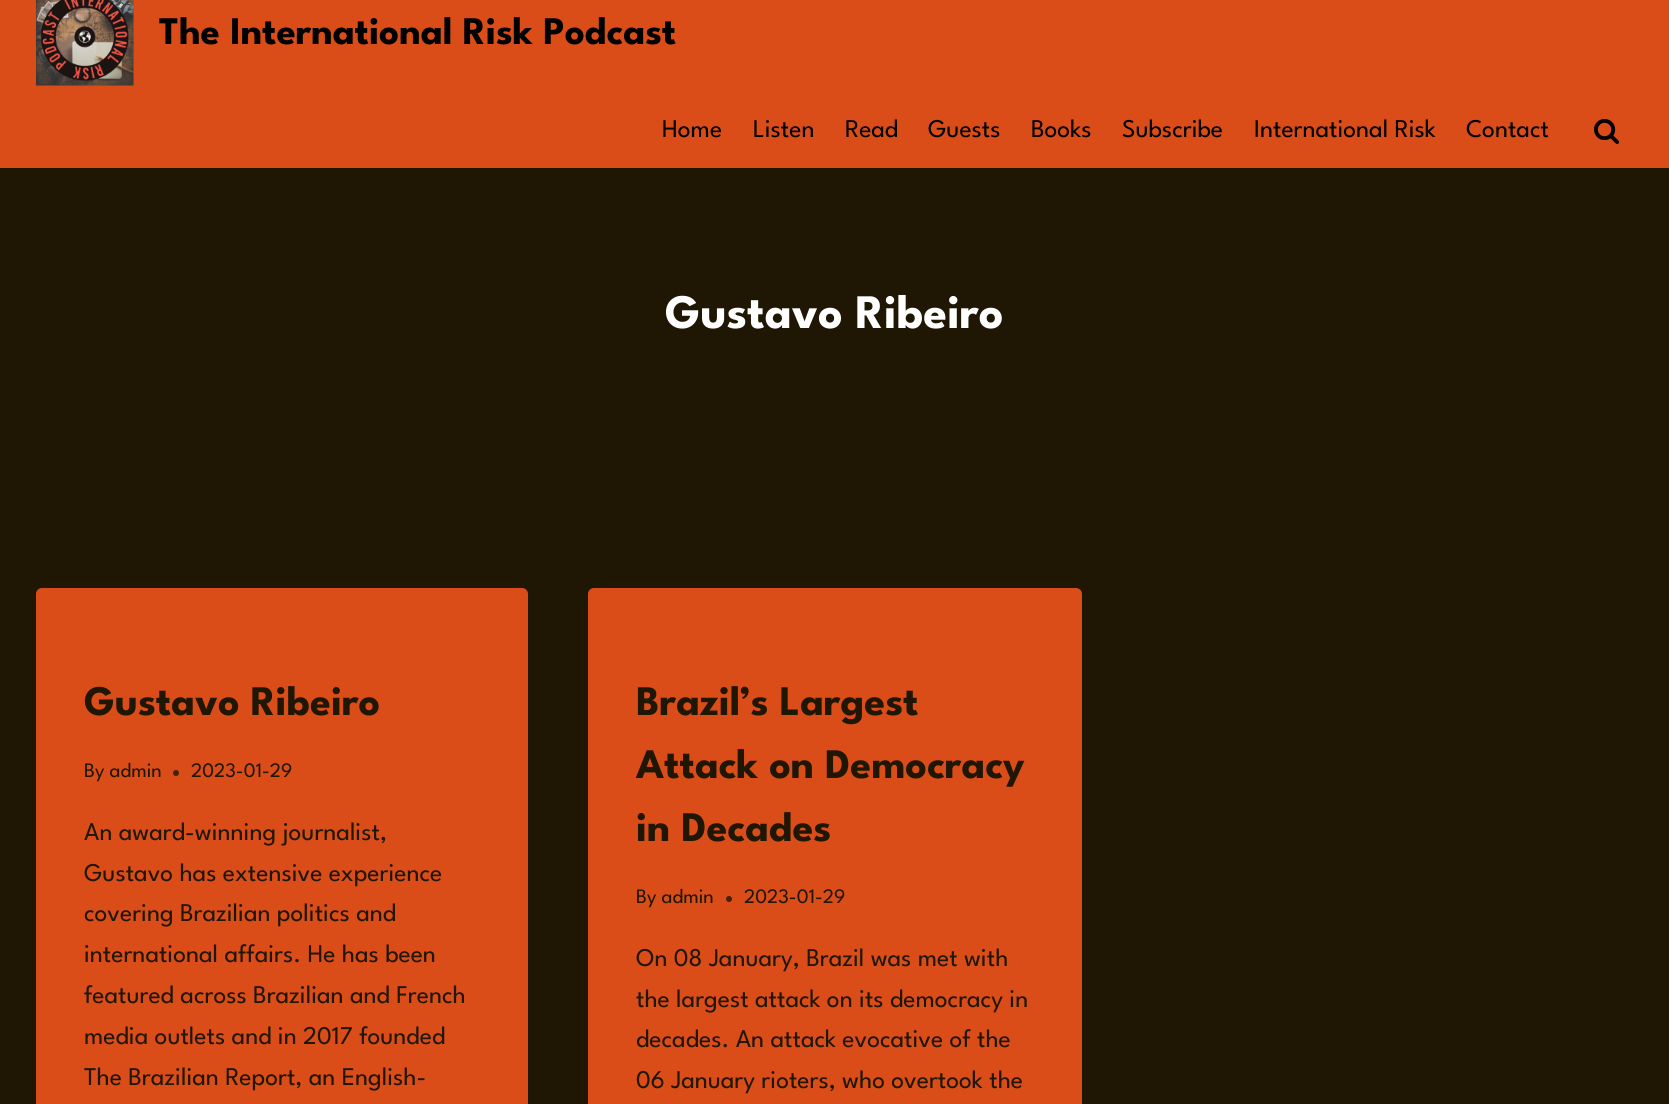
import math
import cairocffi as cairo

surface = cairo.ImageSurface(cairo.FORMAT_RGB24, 1669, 1104)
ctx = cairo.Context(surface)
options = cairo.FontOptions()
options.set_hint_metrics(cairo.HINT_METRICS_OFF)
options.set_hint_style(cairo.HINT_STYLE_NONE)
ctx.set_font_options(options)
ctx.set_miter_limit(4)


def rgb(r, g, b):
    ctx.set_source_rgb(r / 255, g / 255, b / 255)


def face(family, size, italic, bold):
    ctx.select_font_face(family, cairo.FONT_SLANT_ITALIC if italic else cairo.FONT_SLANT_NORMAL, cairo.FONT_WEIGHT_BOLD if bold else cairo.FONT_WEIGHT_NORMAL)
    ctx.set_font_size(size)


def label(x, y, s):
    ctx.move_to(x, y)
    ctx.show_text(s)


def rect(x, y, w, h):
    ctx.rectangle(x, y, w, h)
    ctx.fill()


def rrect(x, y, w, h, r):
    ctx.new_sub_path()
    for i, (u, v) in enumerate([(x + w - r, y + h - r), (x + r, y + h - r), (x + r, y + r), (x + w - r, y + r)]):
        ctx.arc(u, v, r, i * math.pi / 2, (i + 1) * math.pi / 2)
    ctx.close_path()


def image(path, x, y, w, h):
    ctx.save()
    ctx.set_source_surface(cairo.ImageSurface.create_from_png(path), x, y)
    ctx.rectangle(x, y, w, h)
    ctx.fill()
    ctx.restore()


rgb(31, 22, 4)
ctx.paint()
rgb(218, 77, 25)
rect(0, 0, 1669, 168)
image('image0.png', 36, 0, 98, 86)
face('League Spartan', 39, 0, 1)
rgb(0, 0, 0)
label(159, 44, 'The International Risk Podcast')
face('League Spartan', 25.5, 0, 0)
label(662, 137, 'Home')
label(753, 137, 'Listen')
label(845, 137, 'Read')
label(928, 137, 'Guests')
label(1031, 137, 'Books')
label(1122, 137, 'Subscribe')
label(1254, 137, 'International Risk')
label(1466, 137, 'Contact')
image('image1.png', 1594, 118, 25, 26)
face('League Spartan', 48, 0, 1)
rgb(255, 255, 255)
label(665, 328, 'Gustavo Ribeiro')
rgb(218, 77, 25)
rrect(36, 588, 492, 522, 6)
ctx.fill()
face('League Spartan', 42, 0, 1)
rgb(31, 22, 4)
label(84, 715, 'Gustavo Ribeiro')
face('League Spartan', 20.5, 0, 0)
label(84, 777, 'By admin')
rgb(68, 33, 8)
ctx.new_path()
ctx.arc(176, 773, 3, 0, 2 * math.pi)
ctx.fill()
rgb(31, 22, 4)
label(191, 777, '2023-01-29')
face('League Spartan', 25.5, 0, 0)
label(84, 840, 'An award-winning journalist,')
label(84, 881, 'Gustavo has extensive experience')
label(84, 921, 'covering Brazilian politics and')
label(84, 962, 'international affairs. He has been')
label(84, 1003, 'featured across Brazilian and French')
label(84, 1044, 'media outlets and in 2017 founded')
label(84, 1085, 'The Brazilian Report, an English-')
rgb(218, 77, 25)
rrect(588, 588, 494, 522, 6)
ctx.fill()
face('League Spartan', 42, 0, 1)
rgb(31, 22, 4)
label(636, 715, 'Brazil’s Largest')
label(636, 778, 'Attack on Democracy')
label(636, 841, 'in Decades')
face('League Spartan', 20.5, 0, 0)
label(636, 903, 'By admin')
rgb(68, 33, 8)
ctx.new_path()
ctx.arc(729, 899, 3, 0, 2 * math.pi)
ctx.fill()
rgb(31, 22, 4)
label(744, 903, '2023-01-29')
face('League Spartan', 25.5, 0, 0)
label(636, 966, 'On 08 January, Brazil was met with')
label(636, 1007, 'the largest attack on its democracy in')
label(636, 1047, 'decades. An attack evocative of the')
label(636, 1088, '06 January rioters, who overtook the')
surface.write_to_png('render.png')
